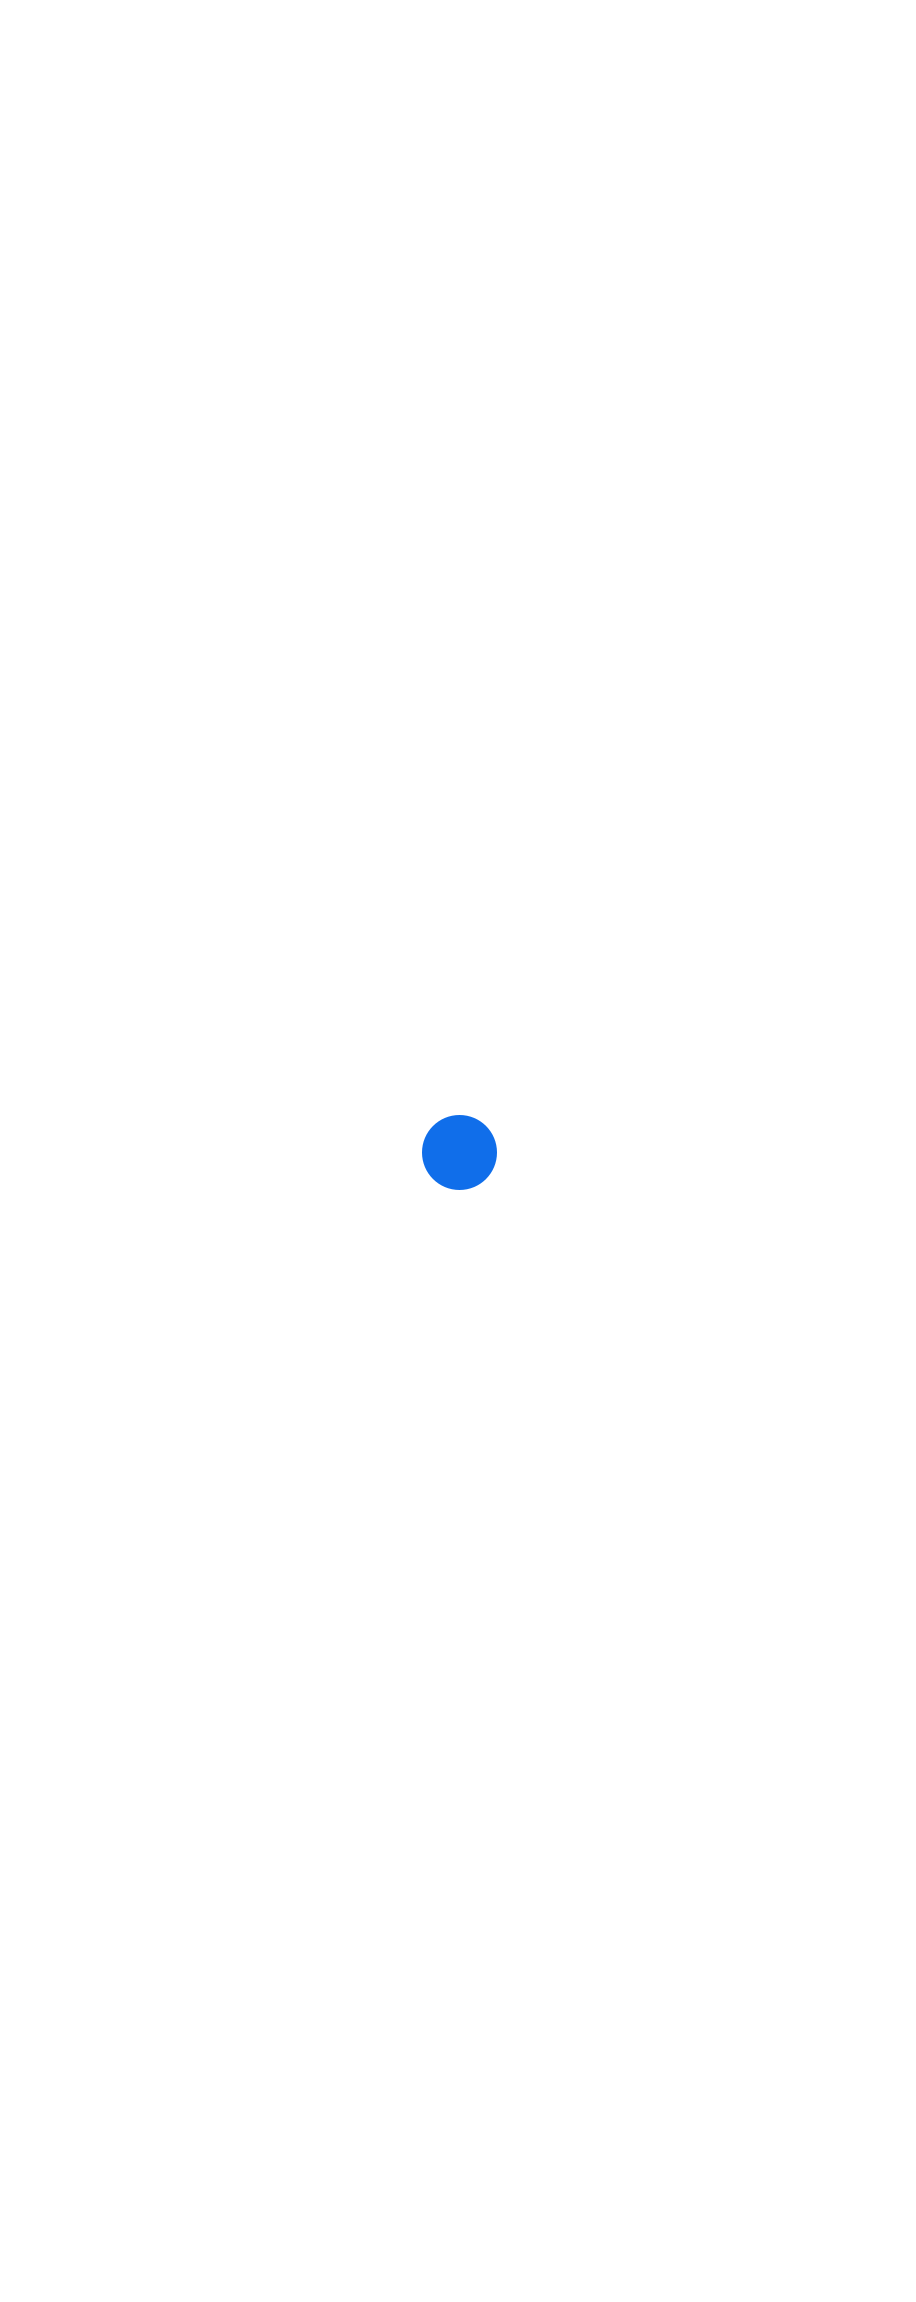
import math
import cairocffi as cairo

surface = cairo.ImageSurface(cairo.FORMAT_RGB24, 916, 2302)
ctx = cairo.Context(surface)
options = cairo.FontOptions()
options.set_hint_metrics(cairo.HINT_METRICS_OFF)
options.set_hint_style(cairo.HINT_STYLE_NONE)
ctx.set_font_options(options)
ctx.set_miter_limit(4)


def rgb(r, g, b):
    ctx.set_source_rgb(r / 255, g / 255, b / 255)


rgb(255, 255, 255)
ctx.paint()
rgb(16, 110, 234)
ctx.arc(459.5, 1152.5, 37.5, 0, 2 * math.pi)
ctx.fill()
surface.write_to_png('render.png')
